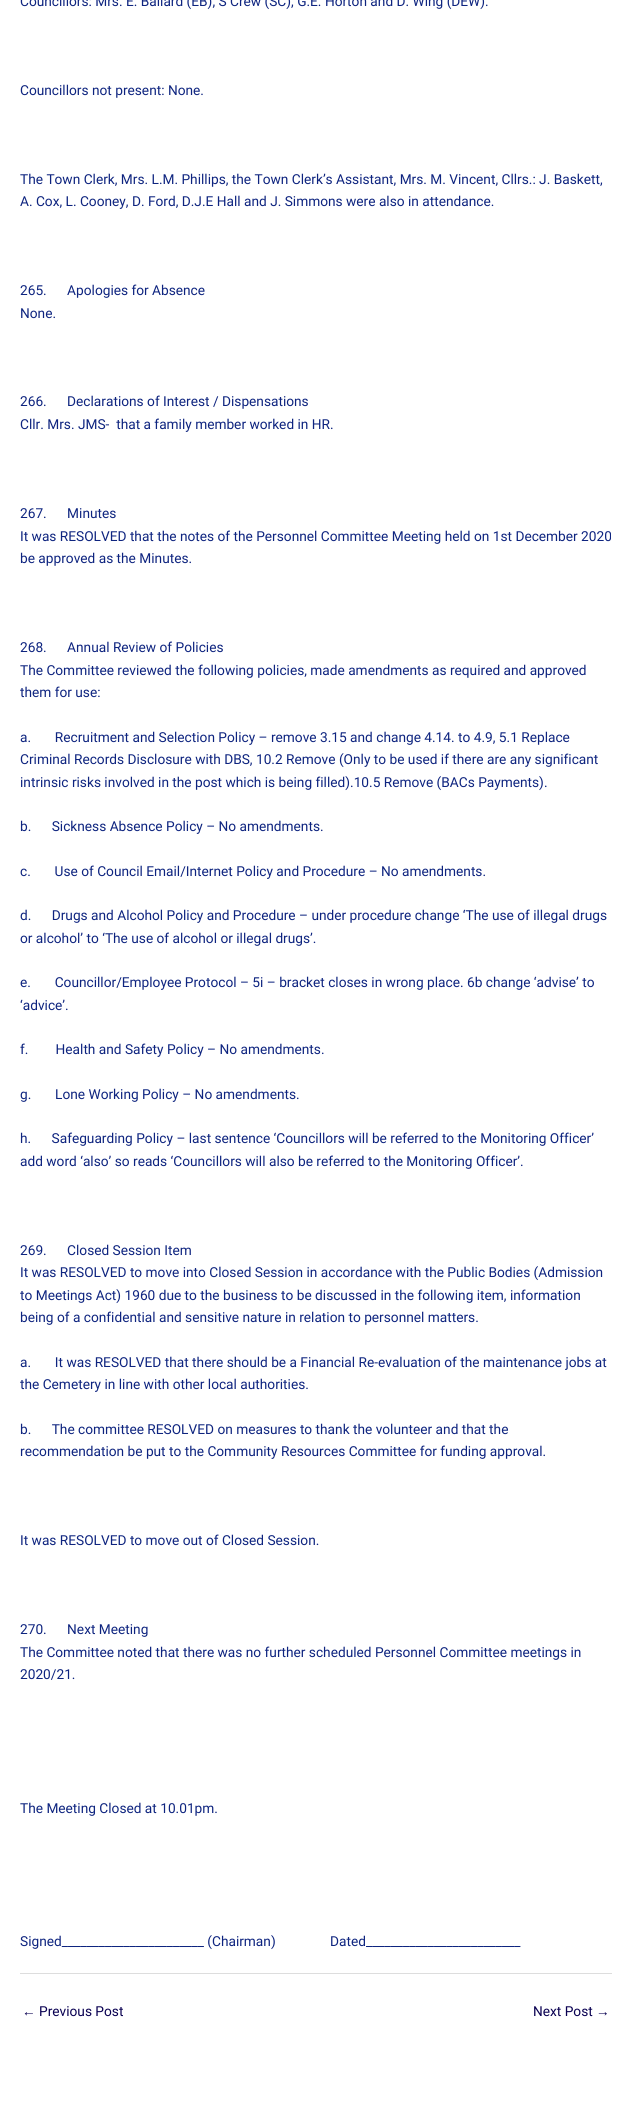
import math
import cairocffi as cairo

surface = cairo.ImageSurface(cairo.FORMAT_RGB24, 632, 2116)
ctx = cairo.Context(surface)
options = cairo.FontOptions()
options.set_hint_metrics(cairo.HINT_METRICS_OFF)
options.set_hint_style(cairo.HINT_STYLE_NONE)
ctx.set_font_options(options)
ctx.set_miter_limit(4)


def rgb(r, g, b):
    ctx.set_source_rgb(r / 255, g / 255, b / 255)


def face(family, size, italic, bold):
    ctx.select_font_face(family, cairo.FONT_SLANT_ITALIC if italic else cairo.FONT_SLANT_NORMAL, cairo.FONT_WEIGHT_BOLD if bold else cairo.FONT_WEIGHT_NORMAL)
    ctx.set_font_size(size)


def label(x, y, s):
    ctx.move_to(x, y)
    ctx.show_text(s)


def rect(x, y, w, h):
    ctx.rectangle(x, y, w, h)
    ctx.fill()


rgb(255, 255, 255)
ctx.paint()
face('Roboto', 13.7, 0, 0)
rgb(14, 36, 127)
label(20, 6, 'Councillors: Mrs. E. Ballard (EB), S Crew (SC), G.E. Horton and D. Wing (DEW).')
label(20, 95, 'Councillors not present: None.')
label(20, 184, 'The Town Clerk, Mrs. L.M. Phillips, the Town Clerk’s Assistant, Mrs. M. Vincent, Cllrs.: J. Baskett,')
label(20, 206, 'A. Cox, L. Cooney, D. Ford, D.J.E Hall and J. Simmons were also in attendance.')
label(20, 295, '265.      Apologies for Absence')
label(20, 318, 'None.')
label(20, 406, '266.      Declarations of Interest / Dispensations')
label(20, 429, 'Cllr. Mrs. JMS-  that a family member worked in HR.')
label(20, 518, '267.      Minutes')
label(20, 541, 'It was RESOLVED that the notes of the Personnel Committee Meeting held on 1st December 2020')
label(20, 563, 'be approved as the Minutes.')
label(20, 652, '268.      Annual Review of Policies')
label(20, 675, 'The Committee reviewed the following policies, made amendments as required and approved')
label(20, 697, 'them for use:')
label(20, 742, 'a.       Recruitment and Selection Policy – remove 3.15 and change 4.14. to 4.9, 5.1 Replace')
label(20, 764, 'Criminal Records Disclosure with DBS, 10.2 Remove (Only to be used if there are any significant')
label(20, 787, 'intrinsic risks involved in the post which is being filled).10.5 Remove (BACs Payments).')
label(20, 831, 'b.      Sickness Absence Policy – No amendments.')
label(20, 876, 'c.       Use of Council Email/Internet Policy and Procedure – No amendments.')
label(20, 920, 'd.      Drugs and Alcohol Policy and Procedure – under procedure change ‘The use of illegal drugs')
label(20, 943, 'or alcohol’ to ‘The use of alcohol or illegal drugs’.')
label(20, 987, 'e.       Councillor/Employee Protocol – 5i – bracket closes in wrong place. 6b change ‘advise’ to')
label(20, 1010, '‘advice’.')
label(20, 1054, 'f.        Health and Safety Policy – No amendments.')
label(20, 1099, 'g.       Lone Working Policy – No amendments.')
label(20, 1143, 'h.      Safeguarding Policy – last sentence ‘Councillors will be referred to the Monitoring Officer’')
label(20, 1166, 'add word ‘also’ so reads ‘Councillors will also be referred to the Monitoring Officer’.')
label(20, 1255, '269.      Closed Session Item')
label(20, 1277, 'It was RESOLVED to move into Closed Session in accordance with the Public Bodies (Admission')
label(20, 1300, 'to Meetings Act) 1960 due to the business to be discussed in the following item, information')
label(20, 1322, 'being of a confidential and sensitive nature in relation to personnel matters.')
label(20, 1367, 'a.       It was RESOLVED that there should be a Financial Re-evaluation of the maintenance jobs at')
label(20, 1389, 'the Cemetery in line with other local authorities.')
label(20, 1434, 'b.      The committee RESOLVED on measures to thank the volunteer and that the')
label(20, 1456, 'recommendation be put to the Community Resources Committee for funding approval.')
label(20, 1545, 'It was RESOLVED to move out of Closed Session.')
label(20, 1634, '270.      Next Meeting')
label(20, 1657, 'The Committee noted that there was no further scheduled Personnel Committee meetings in')
label(20, 1679, '2020/21.')
label(20, 1813, 'The Meeting Closed at 10.01pm.')
label(20, 1946, 'Signed_______________________ (Chairman)                Dated_________________________')
rgb(221, 221, 221)
rect(20, 1973, 592, 1)
face('Liberation Sans', 13.7, 0, 0)
rgb(9, 0, 81)
label(22, 2016, '←')
face('Roboto', 13.7, 0, 0)
label(39, 2016, 'Previous Post')
label(533, 2016, 'Next Post')
face('Liberation Sans', 13.7, 0, 0)
label(596, 2016, '→')
surface.write_to_png('render.png')
